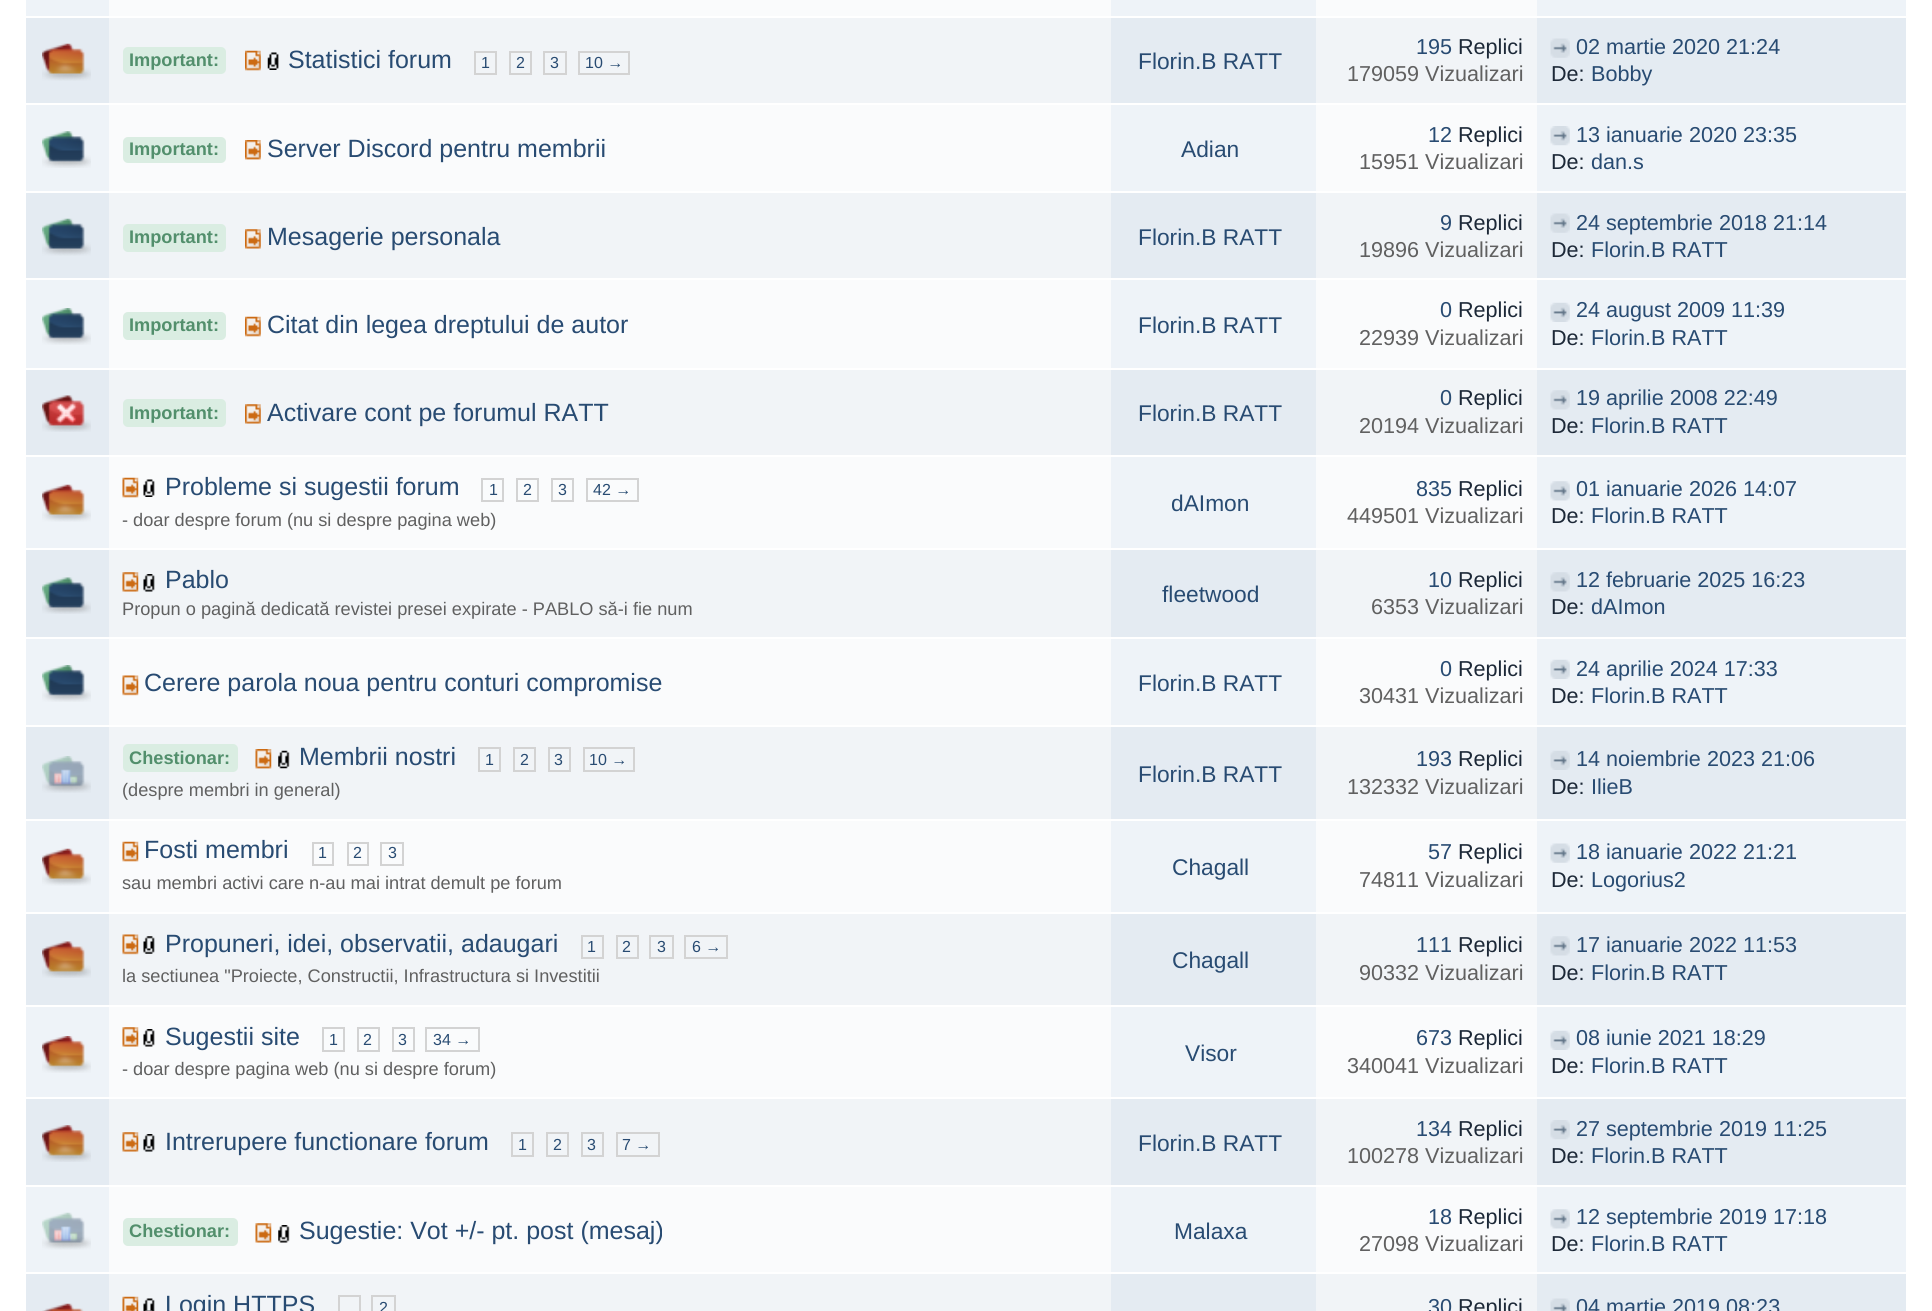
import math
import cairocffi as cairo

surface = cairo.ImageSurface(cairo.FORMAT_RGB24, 1932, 1311)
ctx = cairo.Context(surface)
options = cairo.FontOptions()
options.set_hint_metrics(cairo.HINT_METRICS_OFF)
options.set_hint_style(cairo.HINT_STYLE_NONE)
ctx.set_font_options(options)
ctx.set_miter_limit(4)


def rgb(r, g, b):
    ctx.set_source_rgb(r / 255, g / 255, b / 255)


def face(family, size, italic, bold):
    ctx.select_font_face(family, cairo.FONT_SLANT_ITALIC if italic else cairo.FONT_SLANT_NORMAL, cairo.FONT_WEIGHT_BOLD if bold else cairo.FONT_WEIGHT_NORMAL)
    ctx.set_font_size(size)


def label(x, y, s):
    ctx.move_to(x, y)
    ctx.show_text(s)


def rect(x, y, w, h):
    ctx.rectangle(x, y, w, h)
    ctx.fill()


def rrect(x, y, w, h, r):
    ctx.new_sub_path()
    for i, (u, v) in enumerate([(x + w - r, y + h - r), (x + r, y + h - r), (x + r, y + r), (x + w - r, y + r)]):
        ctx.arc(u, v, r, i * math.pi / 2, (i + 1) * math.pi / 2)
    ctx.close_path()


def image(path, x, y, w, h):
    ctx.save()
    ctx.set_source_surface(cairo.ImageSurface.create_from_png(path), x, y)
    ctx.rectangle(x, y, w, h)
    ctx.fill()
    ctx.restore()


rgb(255, 255, 255)
ctx.paint()
rgb(250, 251, 252)
rect(109, 0, 1428, 16)
rgb(238, 243, 248)
rect(26, 0, 83, 16)
rect(1111, 0, 205, 16)
rect(1537, 0, 369, 16)
rgb(241, 244, 247)
rect(109, 18, 1428, 85)
rgb(228, 235, 242)
rect(26, 18, 83, 85)
image('image0.png', 42, 43, 49, 38)
rgb(218, 237, 226)
rrect(123, 47, 103, 27, 5)
ctx.fill()
face('Liberation Sans', 18.2, 0, 1)
rgb(82, 143, 108)
label(129, 66, 'Important:')
image('image1.png', 245, 50, 16, 21)
image('image2.png', 267, 52, 12, 18)
face('Liberation Sans', 25, 0, 0)
rgb(40, 75, 114)
label(288, 68, 'Statistici forum')
ctx.rectangle(475, 52, 21, 22)
rgb(211, 211, 211)
ctx.stroke()
face('Liberation Sans', 16, 0, 0)
rgb(40, 75, 114)
label(481, 68, '1')
ctx.rectangle(510, 52, 21, 22)
rgb(211, 211, 211)
ctx.stroke()
rgb(40, 75, 114)
label(516, 68, '2')
ctx.rectangle(544, 52, 22, 22)
rgb(211, 211, 211)
ctx.stroke()
rgb(40, 75, 114)
label(550, 68, '3')
ctx.rectangle(579, 52, 50, 22)
rgb(211, 211, 211)
ctx.stroke()
rgb(40, 75, 114)
label(585, 68, '10 →')
rgb(228, 235, 242)
rect(1111, 18, 205, 85)
face('Liberation Sans', 22.75, 0, 0)
rgb(40, 75, 114)
label(1138, 69, 'Florin.B RATT')
face('Liberation Sans', 21.6, 0, 0)
label(1416, 54, '195')
rgb(28, 40, 55)
label(1458, 54, 'Replici')
rgb(96, 96, 96)
label(1347, 81, '179059 Vizualizari')
rgb(228, 235, 242)
rect(1537, 18, 369, 85)
image('image3.png', 1550, 38, 20, 20)
rgb(40, 75, 114)
label(1576, 54, '02 martie 2020 21:24')
rgb(28, 40, 55)
label(1551, 81, 'De:')
rgb(40, 75, 114)
label(1591, 81, 'Bobby')
rgb(250, 251, 252)
rect(109, 105, 1428, 86)
rgb(238, 243, 248)
rect(26, 105, 83, 86)
image('image4.png', 42, 131, 49, 37)
rgb(218, 237, 226)
rrect(123, 137, 103, 26, 5)
ctx.fill()
face('Liberation Sans', 18.2, 0, 1)
rgb(82, 143, 108)
label(129, 155, 'Important:')
image('image5.png', 245, 140, 16, 20)
face('Liberation Sans', 25, 0, 0)
rgb(40, 75, 114)
label(267, 157, 'Server Discord pentru membrii')
rgb(238, 243, 248)
rect(1111, 105, 205, 86)
face('Liberation Sans', 22.75, 0, 0)
rgb(40, 75, 114)
label(1181, 157, 'Adian')
face('Liberation Sans', 21.6, 0, 0)
label(1428, 142, '12')
rgb(28, 40, 55)
label(1458, 142, 'Replici')
rgb(96, 96, 96)
label(1359, 169, '15951 Vizualizari')
rgb(238, 243, 248)
rect(1537, 105, 369, 86)
image('image6.png', 1550, 126, 20, 20)
rgb(40, 75, 114)
label(1576, 142, '13 ianuarie 2020 23:35')
rgb(28, 40, 55)
label(1551, 169, 'De:')
rgb(40, 75, 114)
label(1591, 169, 'dan.s')
rgb(241, 244, 247)
rect(109, 193, 1428, 85)
rgb(228, 235, 242)
rect(26, 193, 83, 85)
image('image7.png', 42, 218, 49, 38)
rgb(218, 237, 226)
rrect(123, 224, 103, 28, 5)
ctx.fill()
face('Liberation Sans', 18.2, 0, 1)
rgb(82, 143, 108)
label(129, 243, 'Important:')
image('image8.png', 245, 229, 16, 20)
face('Liberation Sans', 25, 0, 0)
rgb(40, 75, 114)
label(267, 245, 'Mesagerie personala')
rgb(228, 235, 242)
rect(1111, 193, 205, 85)
face('Liberation Sans', 22.75, 0, 0)
rgb(40, 75, 114)
label(1138, 245, 'Florin.B RATT')
face('Liberation Sans', 21.6, 0, 0)
label(1440, 230, '9')
rgb(28, 40, 55)
label(1458, 230, 'Replici')
rgb(96, 96, 96)
label(1359, 257, '19896 Vizualizari')
rgb(228, 235, 242)
rect(1537, 193, 369, 85)
image('image3.png', 1550, 213, 20, 20)
rgb(40, 75, 114)
label(1576, 230, '24 septembrie 2018 21:14')
rgb(28, 40, 55)
label(1551, 257, 'De:')
rgb(40, 75, 114)
label(1591, 257, 'Florin.B RATT')
rgb(250, 251, 252)
rect(109, 280, 1428, 88)
rgb(238, 243, 248)
rect(26, 280, 83, 88)
image('image9.png', 42, 308, 49, 37)
rgb(218, 237, 226)
rrect(123, 312, 103, 28, 5)
ctx.fill()
face('Liberation Sans', 18.2, 0, 1)
rgb(82, 143, 108)
label(129, 331, 'Important:')
image('image10.png', 245, 316, 16, 21)
face('Liberation Sans', 25, 0, 0)
rgb(40, 75, 114)
label(267, 333, 'Citat din legea dreptului de autor')
rgb(238, 243, 248)
rect(1111, 280, 205, 88)
face('Liberation Sans', 22.75, 0, 0)
rgb(40, 75, 114)
label(1138, 333, 'Florin.B RATT')
face('Liberation Sans', 21.6, 0, 0)
label(1440, 317, '0')
rgb(28, 40, 55)
label(1458, 317, 'Replici')
rgb(96, 96, 96)
label(1359, 345, '22939 Vizualizari')
rgb(238, 243, 248)
rect(1537, 280, 369, 88)
image('image11.png', 1550, 302, 20, 20)
rgb(40, 75, 114)
label(1576, 317, '24 august 2009 11:39')
rgb(28, 40, 55)
label(1551, 345, 'De:')
rgb(40, 75, 114)
label(1591, 345, 'Florin.B RATT')
rgb(241, 244, 247)
rect(109, 370, 1428, 85)
rgb(228, 235, 242)
rect(26, 370, 83, 85)
image('image12.png', 42, 395, 49, 37)
rgb(218, 237, 226)
rrect(123, 399, 103, 28, 5)
ctx.fill()
face('Liberation Sans', 18.2, 0, 1)
rgb(82, 143, 108)
label(129, 419, 'Important:')
image('image8.png', 245, 404, 16, 20)
face('Liberation Sans', 25, 0, 0)
rgb(40, 75, 114)
label(267, 421, 'Activare cont pe forumul RATT')
rgb(228, 235, 242)
rect(1111, 370, 205, 85)
face('Liberation Sans', 22.75, 0, 0)
rgb(40, 75, 114)
label(1138, 421, 'Florin.B RATT')
face('Liberation Sans', 21.6, 0, 0)
label(1440, 405, '0')
rgb(28, 40, 55)
label(1458, 405, 'Replici')
rgb(96, 96, 96)
label(1359, 433, '20194 Vizualizari')
rgb(228, 235, 242)
rect(1537, 370, 369, 85)
image('image13.png', 1550, 390, 20, 20)
rgb(40, 75, 114)
label(1576, 405, '19 aprilie 2008 22:49')
rgb(28, 40, 55)
label(1551, 433, 'De:')
rgb(40, 75, 114)
label(1591, 433, 'Florin.B RATT')
rgb(250, 251, 252)
rect(109, 457, 1428, 91)
rgb(238, 243, 248)
rect(26, 457, 83, 91)
image('image14.png', 42, 484, 49, 38)
image('image15.png', 122, 477, 17, 21)
image('image16.png', 143, 479, 12, 18)
face('Liberation Sans', 25, 0, 0)
rgb(40, 75, 114)
label(165, 495, 'Probleme si sugestii forum')
ctx.rectangle(482, 479, 21, 22)
rgb(211, 211, 211)
ctx.stroke()
face('Liberation Sans', 16, 0, 0)
rgb(40, 75, 114)
label(489, 495, '1')
ctx.rectangle(517, 479, 21, 22)
rgb(211, 211, 211)
ctx.stroke()
rgb(40, 75, 114)
label(523, 495, '2')
ctx.rectangle(552, 479, 21, 22)
rgb(211, 211, 211)
ctx.stroke()
rgb(40, 75, 114)
label(558, 495, '3')
ctx.rectangle(587, 479, 51, 22)
rgb(211, 211, 211)
ctx.stroke()
rgb(40, 75, 114)
label(593, 495, '42 →')
face('Liberation Sans', 18.2, 0, 0)
rgb(96, 96, 96)
label(122, 526, '- doar despre forum (nu si despre pagina web)')
rgb(238, 243, 248)
rect(1111, 457, 205, 91)
face('Liberation Sans', 22.75, 0, 0)
rgb(40, 75, 114)
label(1171, 511, 'dAImon')
face('Liberation Sans', 21.6, 0, 0)
label(1416, 496, '835')
rgb(28, 40, 55)
label(1458, 496, 'Replici')
rgb(96, 96, 96)
label(1347, 523, '449501 Vizualizari')
rgb(238, 243, 248)
rect(1537, 457, 369, 91)
image('image17.png', 1550, 481, 20, 20)
rgb(40, 75, 114)
label(1576, 496, '01 ianuarie 2026 14:07')
rgb(28, 40, 55)
label(1551, 523, 'De:')
rgb(40, 75, 114)
label(1591, 523, 'Florin.B RATT')
rgb(241, 244, 247)
rect(109, 550, 1428, 87)
rgb(228, 235, 242)
rect(26, 550, 83, 87)
image('image18.png', 42, 577, 49, 37)
image('image19.png', 122, 572, 17, 20)
image('image20.png', 143, 574, 12, 18)
face('Liberation Sans', 25, 0, 0)
rgb(40, 75, 114)
label(165, 588, 'Pablo')
face('Liberation Sans', 18.2, 0, 0)
rgb(96, 96, 96)
label(122, 615, 'Propun o pagină dedicată revistei presei expirate - PABLO să-i fie num')
rgb(228, 235, 242)
rect(1111, 550, 205, 87)
face('Liberation Sans', 22.75, 0, 0)
rgb(40, 75, 114)
label(1162, 602, 'fleetwood')
face('Liberation Sans', 21.6, 0, 0)
label(1428, 587, '10')
rgb(28, 40, 55)
label(1458, 587, 'Replici')
rgb(96, 96, 96)
label(1371, 614, '6353 Vizualizari')
rgb(228, 235, 242)
rect(1537, 550, 369, 87)
image('image13.png', 1550, 572, 20, 20)
rgb(40, 75, 114)
label(1576, 587, '12 februarie 2025 16:23')
rgb(28, 40, 55)
label(1551, 614, 'De:')
rgb(40, 75, 114)
label(1591, 614, 'dAImon')
rgb(250, 251, 252)
rect(109, 639, 1428, 86)
rgb(238, 243, 248)
rect(26, 639, 83, 86)
image('image9.png', 42, 665, 49, 37)
image('image21.png', 122, 675, 17, 21)
face('Liberation Sans', 25, 0, 0)
rgb(40, 75, 114)
label(144, 691, 'Cerere parola noua pentru conturi compromise')
rgb(238, 243, 248)
rect(1111, 639, 205, 86)
face('Liberation Sans', 22.75, 0, 0)
rgb(40, 75, 114)
label(1138, 691, 'Florin.B RATT')
face('Liberation Sans', 21.6, 0, 0)
label(1440, 676, '0')
rgb(28, 40, 55)
label(1458, 676, 'Replici')
rgb(96, 96, 96)
label(1359, 703, '30431 Vizualizari')
rgb(238, 243, 248)
rect(1537, 639, 369, 86)
image('image11.png', 1550, 659, 20, 20)
rgb(40, 75, 114)
label(1576, 676, '24 aprilie 2024 17:33')
rgb(28, 40, 55)
label(1551, 703, 'De:')
rgb(40, 75, 114)
label(1591, 703, 'Florin.B RATT')
rgb(241, 244, 247)
rect(109, 727, 1428, 92)
rgb(228, 235, 242)
rect(26, 727, 83, 92)
image('image22.png', 42, 756, 49, 37)
rgb(218, 237, 226)
rrect(123, 744, 115, 28, 5)
ctx.fill()
face('Liberation Sans', 18.2, 0, 1)
rgb(82, 143, 108)
label(129, 764, 'Chestionar:')
image('image23.png', 255, 749, 17, 20)
image('image24.png', 278, 750, 12, 19)
face('Liberation Sans', 25, 0, 0)
rgb(40, 75, 114)
label(299, 765, 'Membrii nostri')
ctx.rectangle(479, 748, 21, 23)
rgb(211, 211, 211)
ctx.stroke()
face('Liberation Sans', 16, 0, 0)
rgb(40, 75, 114)
label(485, 765, '1')
ctx.rectangle(514, 748, 21, 23)
rgb(211, 211, 211)
ctx.stroke()
rgb(40, 75, 114)
label(520, 765, '2')
ctx.rectangle(549, 748, 21, 23)
rgb(211, 211, 211)
ctx.stroke()
rgb(40, 75, 114)
label(554, 765, '3')
ctx.rectangle(584, 748, 50, 23)
rgb(211, 211, 211)
ctx.stroke()
rgb(40, 75, 114)
label(589, 765, '10 →')
face('Liberation Sans', 18.2, 0, 0)
rgb(96, 96, 96)
label(122, 796, '(despre membri in general)')
rgb(228, 235, 242)
rect(1111, 727, 205, 92)
face('Liberation Sans', 22.75, 0, 0)
rgb(40, 75, 114)
label(1138, 782, 'Florin.B RATT')
face('Liberation Sans', 21.6, 0, 0)
label(1416, 766, '193')
rgb(28, 40, 55)
label(1458, 766, 'Replici')
rgb(96, 96, 96)
label(1347, 794, '132332 Vizualizari')
rgb(228, 235, 242)
rect(1537, 727, 369, 92)
image('image25.png', 1550, 750, 20, 20)
rgb(40, 75, 114)
label(1576, 766, '14 noiembrie 2023 21:06')
rgb(28, 40, 55)
label(1551, 794, 'De:')
rgb(40, 75, 114)
label(1591, 794, 'IlieB')
rgb(250, 251, 252)
rect(109, 821, 1428, 91)
rgb(238, 243, 248)
rect(26, 821, 83, 91)
image('image14.png', 42, 848, 49, 38)
image('image15.png', 122, 841, 17, 21)
face('Liberation Sans', 25, 0, 0)
rgb(40, 75, 114)
label(144, 858, 'Fosti membri')
ctx.rectangle(313, 843, 20, 22)
rgb(211, 211, 211)
ctx.stroke()
face('Liberation Sans', 16, 0, 0)
rgb(40, 75, 114)
label(318, 858, '1')
ctx.rectangle(348, 843, 20, 22)
rgb(211, 211, 211)
ctx.stroke()
rgb(40, 75, 114)
label(353, 858, '2')
ctx.rectangle(381, 843, 22, 22)
rgb(211, 211, 211)
ctx.stroke()
rgb(40, 75, 114)
label(388, 858, '3')
face('Liberation Sans', 18.2, 0, 0)
rgb(96, 96, 96)
label(122, 889, 'sau membri activi care n-au mai intrat demult pe forum')
rgb(238, 243, 248)
rect(1111, 821, 205, 91)
face('Liberation Sans', 22.75, 0, 0)
rgb(40, 75, 114)
label(1172, 875, 'Chagall')
face('Liberation Sans', 21.6, 0, 0)
label(1428, 859, '57')
rgb(28, 40, 55)
label(1458, 859, 'Replici')
rgb(96, 96, 96)
label(1359, 887, '74811 Vizualizari')
rgb(238, 243, 248)
rect(1537, 821, 369, 91)
image('image26.png', 1550, 843, 20, 20)
rgb(40, 75, 114)
label(1576, 859, '18 ianuarie 2022 21:21')
rgb(28, 40, 55)
label(1551, 887, 'De:')
rgb(40, 75, 114)
label(1591, 887, 'Logorius2')
rgb(241, 244, 247)
rect(109, 914, 1428, 91)
rgb(228, 235, 242)
rect(26, 914, 83, 91)
image('image27.png', 42, 941, 49, 37)
image('image28.png', 122, 934, 17, 21)
image('image29.png', 143, 936, 12, 18)
face('Liberation Sans', 25, 0, 0)
rgb(40, 75, 114)
label(165, 952, 'Propuneri, idei, observatii, adaugari')
ctx.rectangle(582, 936, 21, 22)
rgb(211, 211, 211)
ctx.stroke()
face('Liberation Sans', 16, 0, 0)
rgb(40, 75, 114)
label(587, 952, '1')
ctx.rectangle(617, 936, 21, 22)
rgb(211, 211, 211)
ctx.stroke()
rgb(40, 75, 114)
label(622, 952, '2')
ctx.rectangle(650, 936, 23, 22)
rgb(211, 211, 211)
ctx.stroke()
rgb(40, 75, 114)
label(657, 952, '3')
ctx.rectangle(685, 936, 42, 22)
rgb(211, 211, 211)
ctx.stroke()
rgb(40, 75, 114)
label(692, 952, '6 →')
face('Liberation Sans', 18.2, 0, 0)
rgb(96, 96, 96)
label(122, 982, 'la sectiunea "Proiecte, Constructii, Infrastructura si Investitii')
rgb(228, 235, 242)
rect(1111, 914, 205, 91)
face('Liberation Sans', 22.75, 0, 0)
rgb(40, 75, 114)
label(1172, 968, 'Chagall')
face('Liberation Sans', 21.6, 0, 0)
label(1416, 952, '111')
rgb(28, 40, 55)
label(1458, 952, 'Replici')
rgb(96, 96, 96)
label(1359, 980, '90332 Vizualizari')
rgb(228, 235, 242)
rect(1537, 914, 369, 91)
image('image13.png', 1550, 936, 20, 20)
rgb(40, 75, 114)
label(1576, 952, '17 ianuarie 2022 11:53')
rgb(28, 40, 55)
label(1551, 980, 'De:')
rgb(40, 75, 114)
label(1591, 980, 'Florin.B RATT')
rgb(250, 251, 252)
rect(109, 1007, 1428, 90)
rgb(238, 243, 248)
rect(26, 1007, 83, 90)
image('image30.png', 42, 1036, 49, 37)
image('image31.png', 122, 1027, 17, 20)
image('image32.png', 143, 1029, 12, 18)
face('Liberation Sans', 25, 0, 0)
rgb(40, 75, 114)
label(165, 1045, 'Sugestii site')
ctx.rectangle(323, 1028, 21, 23)
rgb(211, 211, 211)
ctx.stroke()
face('Liberation Sans', 16, 0, 0)
rgb(40, 75, 114)
label(329, 1045, '1')
ctx.rectangle(358, 1028, 21, 23)
rgb(211, 211, 211)
ctx.stroke()
rgb(40, 75, 114)
label(363, 1045, '2')
ctx.rectangle(393, 1028, 21, 23)
rgb(211, 211, 211)
ctx.stroke()
rgb(40, 75, 114)
label(398, 1045, '3')
ctx.rectangle(426, 1028, 53, 23)
rgb(211, 211, 211)
ctx.stroke()
rgb(40, 75, 114)
label(433, 1045, '34 →')
face('Liberation Sans', 18.2, 0, 0)
rgb(96, 96, 96)
label(122, 1075, '- doar despre pagina web (nu si despre forum)')
rgb(238, 243, 248)
rect(1111, 1007, 205, 90)
face('Liberation Sans', 22.75, 0, 0)
rgb(40, 75, 114)
label(1185, 1061, 'Visor')
face('Liberation Sans', 21.6, 0, 0)
label(1416, 1045, '673')
rgb(28, 40, 55)
label(1458, 1045, 'Replici')
rgb(96, 96, 96)
label(1347, 1073, '340041 Vizualizari')
rgb(238, 243, 248)
rect(1537, 1007, 369, 90)
image('image11.png', 1550, 1030, 20, 20)
rgb(40, 75, 114)
label(1576, 1045, '08 iunie 2021 18:29')
rgb(28, 40, 55)
label(1551, 1073, 'De:')
rgb(40, 75, 114)
label(1591, 1073, 'Florin.B RATT')
rgb(241, 244, 247)
rect(109, 1099, 1428, 86)
rgb(228, 235, 242)
rect(26, 1099, 83, 86)
image('image33.png', 42, 1125, 49, 37)
image('image19.png', 122, 1132, 17, 20)
image('image20.png', 143, 1134, 12, 18)
face('Liberation Sans', 25, 0, 0)
rgb(40, 75, 114)
label(165, 1150, 'Intrerupere functionare forum')
ctx.rectangle(512, 1133, 21, 23)
rgb(211, 211, 211)
ctx.stroke()
face('Liberation Sans', 16, 0, 0)
rgb(40, 75, 114)
label(518, 1150, '1')
ctx.rectangle(547, 1133, 21, 23)
rgb(211, 211, 211)
ctx.stroke()
rgb(40, 75, 114)
label(553, 1150, '2')
ctx.rectangle(582, 1133, 21, 23)
rgb(211, 211, 211)
ctx.stroke()
rgb(40, 75, 114)
label(587, 1150, '3')
ctx.rectangle(617, 1133, 42, 23)
rgb(211, 211, 211)
ctx.stroke()
rgb(40, 75, 114)
label(622, 1150, '7 →')
rgb(228, 235, 242)
rect(1111, 1099, 205, 86)
face('Liberation Sans', 22.75, 0, 0)
rgb(40, 75, 114)
label(1138, 1151, 'Florin.B RATT')
face('Liberation Sans', 21.6, 0, 0)
label(1416, 1136, '134')
rgb(28, 40, 55)
label(1458, 1136, 'Replici')
rgb(96, 96, 96)
label(1347, 1163, '100278 Vizualizari')
rgb(228, 235, 242)
rect(1537, 1099, 369, 86)
image('image34.png', 1550, 1120, 20, 20)
rgb(40, 75, 114)
label(1576, 1136, '27 septembrie 2019 11:25')
rgb(28, 40, 55)
label(1551, 1163, 'De:')
rgb(40, 75, 114)
label(1591, 1163, 'Florin.B RATT')
rgb(250, 251, 252)
rect(109, 1187, 1428, 85)
rgb(238, 243, 248)
rect(26, 1187, 83, 85)
image('image35.png', 42, 1212, 49, 38)
rgb(218, 237, 226)
rrect(123, 1218, 115, 28, 5)
ctx.fill()
face('Liberation Sans', 18.2, 0, 1)
rgb(82, 143, 108)
label(129, 1237, 'Chestionar:')
image('image31.png', 255, 1223, 17, 20)
image('image36.png', 278, 1225, 12, 18)
face('Liberation Sans', 25, 0, 0)
rgb(40, 75, 114)
label(299, 1239, 'Sugestie: Vot +/- pt. post (mesaj)')
rgb(238, 243, 248)
rect(1111, 1187, 205, 85)
face('Liberation Sans', 22.75, 0, 0)
rgb(40, 75, 114)
label(1174, 1239, 'Malaxa')
face('Liberation Sans', 21.6, 0, 0)
label(1428, 1224, '18')
rgb(28, 40, 55)
label(1458, 1224, 'Replici')
rgb(96, 96, 96)
label(1359, 1251, '27098 Vizualizari')
rgb(238, 243, 248)
rect(1537, 1187, 369, 85)
image('image17.png', 1550, 1209, 20, 20)
rgb(40, 75, 114)
label(1576, 1224, '12 septembrie 2019 17:18')
rgb(28, 40, 55)
label(1551, 1251, 'De:')
rgb(40, 75, 114)
label(1591, 1251, 'Florin.B RATT')
rgb(241, 244, 247)
rect(109, 1274, 1428, 37)
rgb(228, 235, 242)
rect(26, 1274, 83, 37)
image('image37.png', 42, 1303, 42, 8)
image('image38.png', 122, 1296, 17, 15)
image('image39.png', 143, 1298, 12, 13)
face('Liberation Sans', 25, 0, 0)
rgb(40, 75, 114)
label(165, 1313, 'Login HTTPS')
ctx.rectangle(372, 1296, 23, 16)
rgb(211, 211, 211)
ctx.stroke()
face('Liberation Sans', 16, 0, 0)
rgb(40, 75, 114)
label(379, 1313, '2')
ctx.rectangle(339, 1296, 21, 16)
rgb(211, 211, 211)
ctx.stroke()
rgb(228, 235, 242)
rect(1111, 1274, 205, 37)
face('Liberation Sans', 21.6, 0, 0)
rgb(40, 75, 114)
label(1428, 1314, '30')
rgb(28, 40, 55)
label(1458, 1314, 'Replici')
rgb(228, 235, 242)
rect(1537, 1274, 369, 37)
image('image40.png', 1550, 1298, 20, 13)
rgb(40, 75, 114)
label(1576, 1314, '04 martie 2019 08:23')
surface.write_to_png('render.png')
